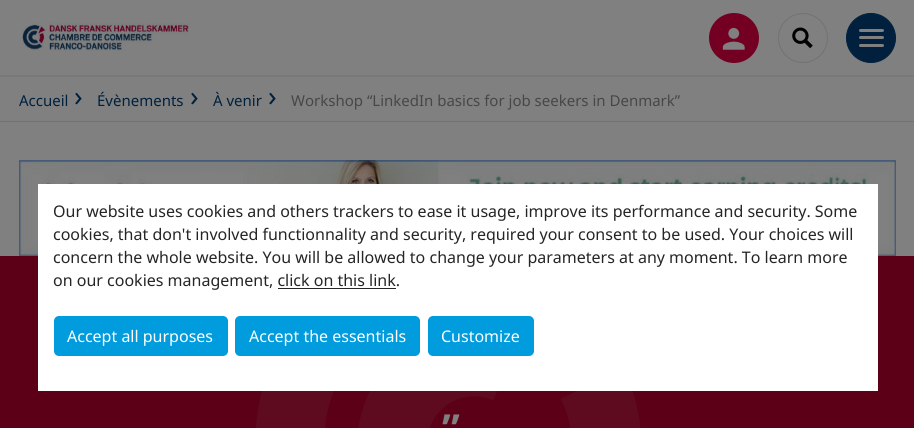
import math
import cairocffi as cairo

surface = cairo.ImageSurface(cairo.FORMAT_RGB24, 914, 428)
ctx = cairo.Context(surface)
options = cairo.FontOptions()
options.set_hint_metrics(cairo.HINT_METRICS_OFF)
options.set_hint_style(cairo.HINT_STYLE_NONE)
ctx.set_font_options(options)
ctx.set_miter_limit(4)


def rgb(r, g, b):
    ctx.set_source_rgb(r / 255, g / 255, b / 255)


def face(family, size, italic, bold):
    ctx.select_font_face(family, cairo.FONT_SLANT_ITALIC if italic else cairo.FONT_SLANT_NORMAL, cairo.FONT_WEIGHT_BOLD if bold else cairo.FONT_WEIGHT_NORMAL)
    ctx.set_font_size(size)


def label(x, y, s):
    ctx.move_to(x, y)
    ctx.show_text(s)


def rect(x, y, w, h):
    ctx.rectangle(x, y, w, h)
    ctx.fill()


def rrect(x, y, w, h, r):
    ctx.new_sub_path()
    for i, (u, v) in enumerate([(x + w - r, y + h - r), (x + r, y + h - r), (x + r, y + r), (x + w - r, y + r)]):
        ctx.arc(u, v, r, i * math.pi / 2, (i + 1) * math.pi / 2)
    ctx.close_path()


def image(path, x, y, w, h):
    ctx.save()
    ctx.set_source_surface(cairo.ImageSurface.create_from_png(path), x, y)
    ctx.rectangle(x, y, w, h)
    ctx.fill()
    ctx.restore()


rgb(128, 128, 128)
ctx.paint()
rgb(121, 121, 121)
rect(0, 75, 914, 2)
image('image0.png', 22, 23, 167, 28)
rgb(115, 0, 35)
ctx.arc(734, 38, 25, 0, 2 * math.pi)
ctx.fill()
image('image1.png', 722, 27, 23, 23)
ctx.arc(803, 38, 24.5, 0, 2 * math.pi)
rgb(114, 114, 114)
ctx.set_line_width(1)
ctx.stroke()
image('image2.png', 792, 27, 21, 22)
rgb(0, 32, 61)
ctx.arc(871, 38, 24.5, 0, 2 * math.pi)
ctx.fill_preserve()
ctx.stroke()
rgb(128, 128, 128)
rrect(859, 29, 25, 3, 1.5)
ctx.fill()
rrect(859, 36, 25, 3, 1.5)
ctx.fill()
rrect(859, 44, 25, 3, 1.5)
ctx.fill()
rgb(114, 114, 114)
rect(0, 121, 914, 1)
face('Noto Sans', 15, 0, 0)
rgb(0, 32, 61)
label(19, 106, 'Accueil')
face('Noto Sans', 28, 0, 0)
label(74, 106, '›')
face('Noto Sans', 15, 0, 0)
label(97, 106, 'Évènements')
face('Noto Sans', 28, 0, 0)
label(190, 106, '›')
face('Noto Sans', 15, 0, 0)
label(213, 106, 'À venir')
face('Noto Sans', 28, 0, 0)
label(268, 106, '›')
face('Noto Sans', 15, 0, 0)
rgb(71, 71, 71)
label(291, 106, 'Workshop “LinkedIn basics for job seekers in Denmark”')
image('image3.png', 19, 160, 877, 96)
rgb(91, 0, 23)
rect(0, 256, 914, 172)
image('image4.png', 256, 391, 385, 37)
face('Noto Sans', 40, 0, 1)
rgb(128, 128, 128)
label(442, 443, '”')
rgb(255, 255, 255)
rect(38, 184, 840, 207)
face('Noto Sans', 16, 0, 0)
rgb(37, 37, 37)
label(53, 217, 'Our website uses cookies and others trackers to ease it usage, improve its performance and security. Some')
label(53, 240, 'cookies, that don\'t involved functionnality and security, required your consent to be used. Your choices will')
label(53, 263, 'concern the whole website. You will be allowed to change your parameters at any moment. To learn more')
label(53, 286, 'on our cookies management, click on this link.')
rect(278, 288, 118, 1)
rgb(0, 156, 222)
rrect(54, 316, 174, 40, 5)
ctx.fill()
rgb(255, 255, 255)
label(67, 342, 'Accept all purposes')
rgb(0, 156, 222)
rrect(235, 316, 185, 40, 5)
ctx.fill()
rgb(255, 255, 255)
label(249, 342, 'Accept the essentials')
rgb(0, 156, 222)
rrect(428, 316, 106, 40, 5)
ctx.fill()
rgb(255, 255, 255)
label(441, 342, 'Customize')
surface.write_to_png('render.png')
